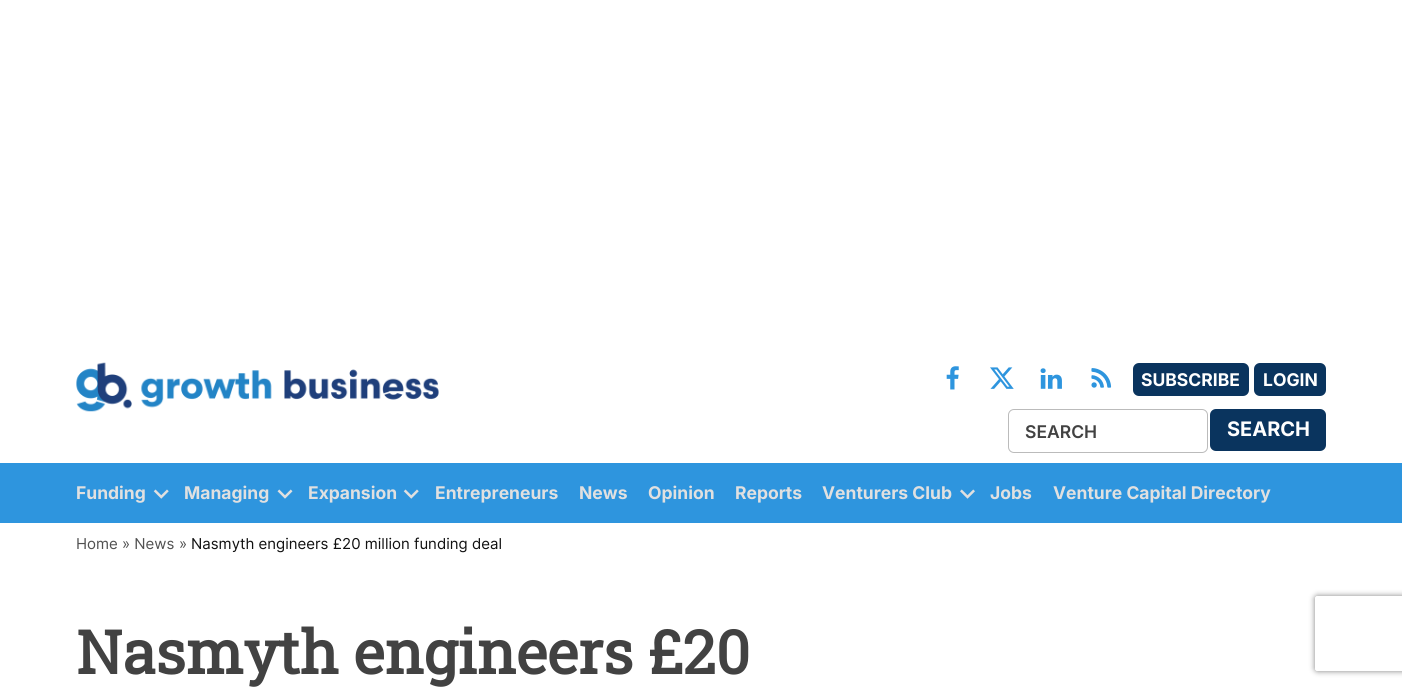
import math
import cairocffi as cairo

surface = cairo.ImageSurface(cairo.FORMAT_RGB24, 1402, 688)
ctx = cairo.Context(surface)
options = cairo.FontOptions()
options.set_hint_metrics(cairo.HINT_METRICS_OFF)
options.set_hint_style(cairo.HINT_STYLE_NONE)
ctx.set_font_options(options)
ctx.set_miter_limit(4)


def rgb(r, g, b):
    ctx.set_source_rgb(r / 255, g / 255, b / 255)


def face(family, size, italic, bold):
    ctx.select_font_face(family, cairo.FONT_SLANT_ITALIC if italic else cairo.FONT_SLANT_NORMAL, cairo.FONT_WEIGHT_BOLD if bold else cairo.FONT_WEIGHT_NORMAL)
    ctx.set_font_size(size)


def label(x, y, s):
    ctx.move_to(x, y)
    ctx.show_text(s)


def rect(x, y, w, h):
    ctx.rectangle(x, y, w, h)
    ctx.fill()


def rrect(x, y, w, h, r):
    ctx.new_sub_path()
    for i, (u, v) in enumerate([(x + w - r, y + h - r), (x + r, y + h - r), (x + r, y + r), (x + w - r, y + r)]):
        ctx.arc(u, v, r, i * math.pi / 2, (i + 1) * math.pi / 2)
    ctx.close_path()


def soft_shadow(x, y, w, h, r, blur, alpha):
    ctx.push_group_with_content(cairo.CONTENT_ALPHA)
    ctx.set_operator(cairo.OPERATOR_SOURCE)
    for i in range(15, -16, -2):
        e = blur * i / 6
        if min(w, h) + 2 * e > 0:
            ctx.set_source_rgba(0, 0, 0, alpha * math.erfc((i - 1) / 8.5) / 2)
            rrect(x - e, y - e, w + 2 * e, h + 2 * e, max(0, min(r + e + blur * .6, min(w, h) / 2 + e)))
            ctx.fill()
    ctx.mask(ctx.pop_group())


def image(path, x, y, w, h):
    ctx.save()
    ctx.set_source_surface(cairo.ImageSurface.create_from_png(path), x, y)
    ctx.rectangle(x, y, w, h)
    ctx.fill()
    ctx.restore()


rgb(255, 255, 255)
ctx.paint()
image('image0.png', 76, 362, 363, 50)
image('image1.png', 946, 366, 13, 24)
image('image2.png', 990, 367, 24, 22)
image('image3.png', 1040, 368, 22, 21)
image('image4.png', 1091, 368, 21, 20)
rgb(10, 52, 94)
rrect(1133, 363, 116, 33, 6)
ctx.fill()
face('Inter', 17.5, 0, 1)
rgb(255, 255, 255)
label(1141, 386, 'SUBSCRIBE')
rgb(10, 52, 94)
rrect(1254, 363, 72, 33, 6)
ctx.fill()
rgb(255, 255, 255)
label(1263, 386, 'LOGIN')
rgb(46, 149, 222)
ctx.new_path()
ctx.move_to(-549, 463)
ctx.line_to(-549, 523)
ctx.line_to(701, 523)
ctx.line_to(701, 522)
ctx.line_to(76, 522)
ctx.line_to(76, 463)
ctx.close_path()
ctx.fill()
ctx.new_path()
ctx.move_to(701, 522)
ctx.line_to(701, 523)
ctx.line_to(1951, 523)
ctx.line_to(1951, 463)
ctx.line_to(1326, 463)
ctx.line_to(1326, 522)
ctx.close_path()
ctx.fill()
rect(76, 463, 1250, 59)
rrect(1008.5, 409.5, 199, 43, 5.5)
rgb(187, 187, 187)
ctx.set_line_width(1)
ctx.stroke()
face('Inter SemiBold', 17.5, 0, 0)
rgb(66, 66, 66)
label(1025, 438, 'SEARCH')
rgb(10, 52, 94)
rrect(1210, 409, 116, 42, 6)
ctx.fill()
face('Inter', 20, 0, 1)
rgb(255, 255, 255)
label(1227, 436, 'SEARCH')
face('Inter', 17.5, 0, 1)
rgb(224, 224, 224)
label(76, 499, 'Funding')
image('image5.png', 153, 489, 16, 10)
label(184, 499, 'Managing')
image('image6.png', 277, 489, 16, 10)
label(308, 499, 'Expansion')
image('image5.png', 403, 489, 16, 10)
label(435, 499, 'Entrepreneurs')
label(579, 499, 'News')
label(648, 499, 'Opinion')
label(735, 499, 'Reports')
label(822, 499, 'Venturers Club')
image('image7.png', 960, 489, 15, 10)
label(990, 499, 'Jobs')
label(1053, 499, 'Venture Capital Directory')
face('Inter', 15, 0, 0)
rgb(81, 81, 81)
label(76, 549, 'Home')
label(122, 549, '» News')
label(179, 549, '»')
rgb(17, 17, 17)
label(191, 549, 'Nasmyth engineers £20 million funding deal')
face('Roboto Slab', 60, 0, 1)
rgb(66, 66, 66)
label(76, 674, 'Nasmyth engineers £20')
ctx.save()
ctx.set_fill_rule(cairo.FILL_RULE_EVEN_ODD)
ctx.new_path()
ctx.move_to(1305, 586)
ctx.line_to(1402, 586)
ctx.line_to(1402, 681)
ctx.line_to(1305, 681)
ctx.close_path()
ctx.move_to(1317.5, 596)
ctx.line_to(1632.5, 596)
ctx.curve_to(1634, 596, 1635, 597, 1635, 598.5)
ctx.line_to(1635, 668.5)
ctx.curve_to(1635, 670, 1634, 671, 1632.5, 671)
ctx.line_to(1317.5, 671)
ctx.curve_to(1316, 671, 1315, 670, 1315, 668.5)
ctx.line_to(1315, 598.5)
ctx.curve_to(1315, 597, 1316, 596, 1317.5, 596)
ctx.close_path()
ctx.clip()
rgb(128, 128, 128)
soft_shadow(1315, 596, 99, 75, 2.5, 3, 1)
ctx.restore()
surface.write_to_png('render.png')
